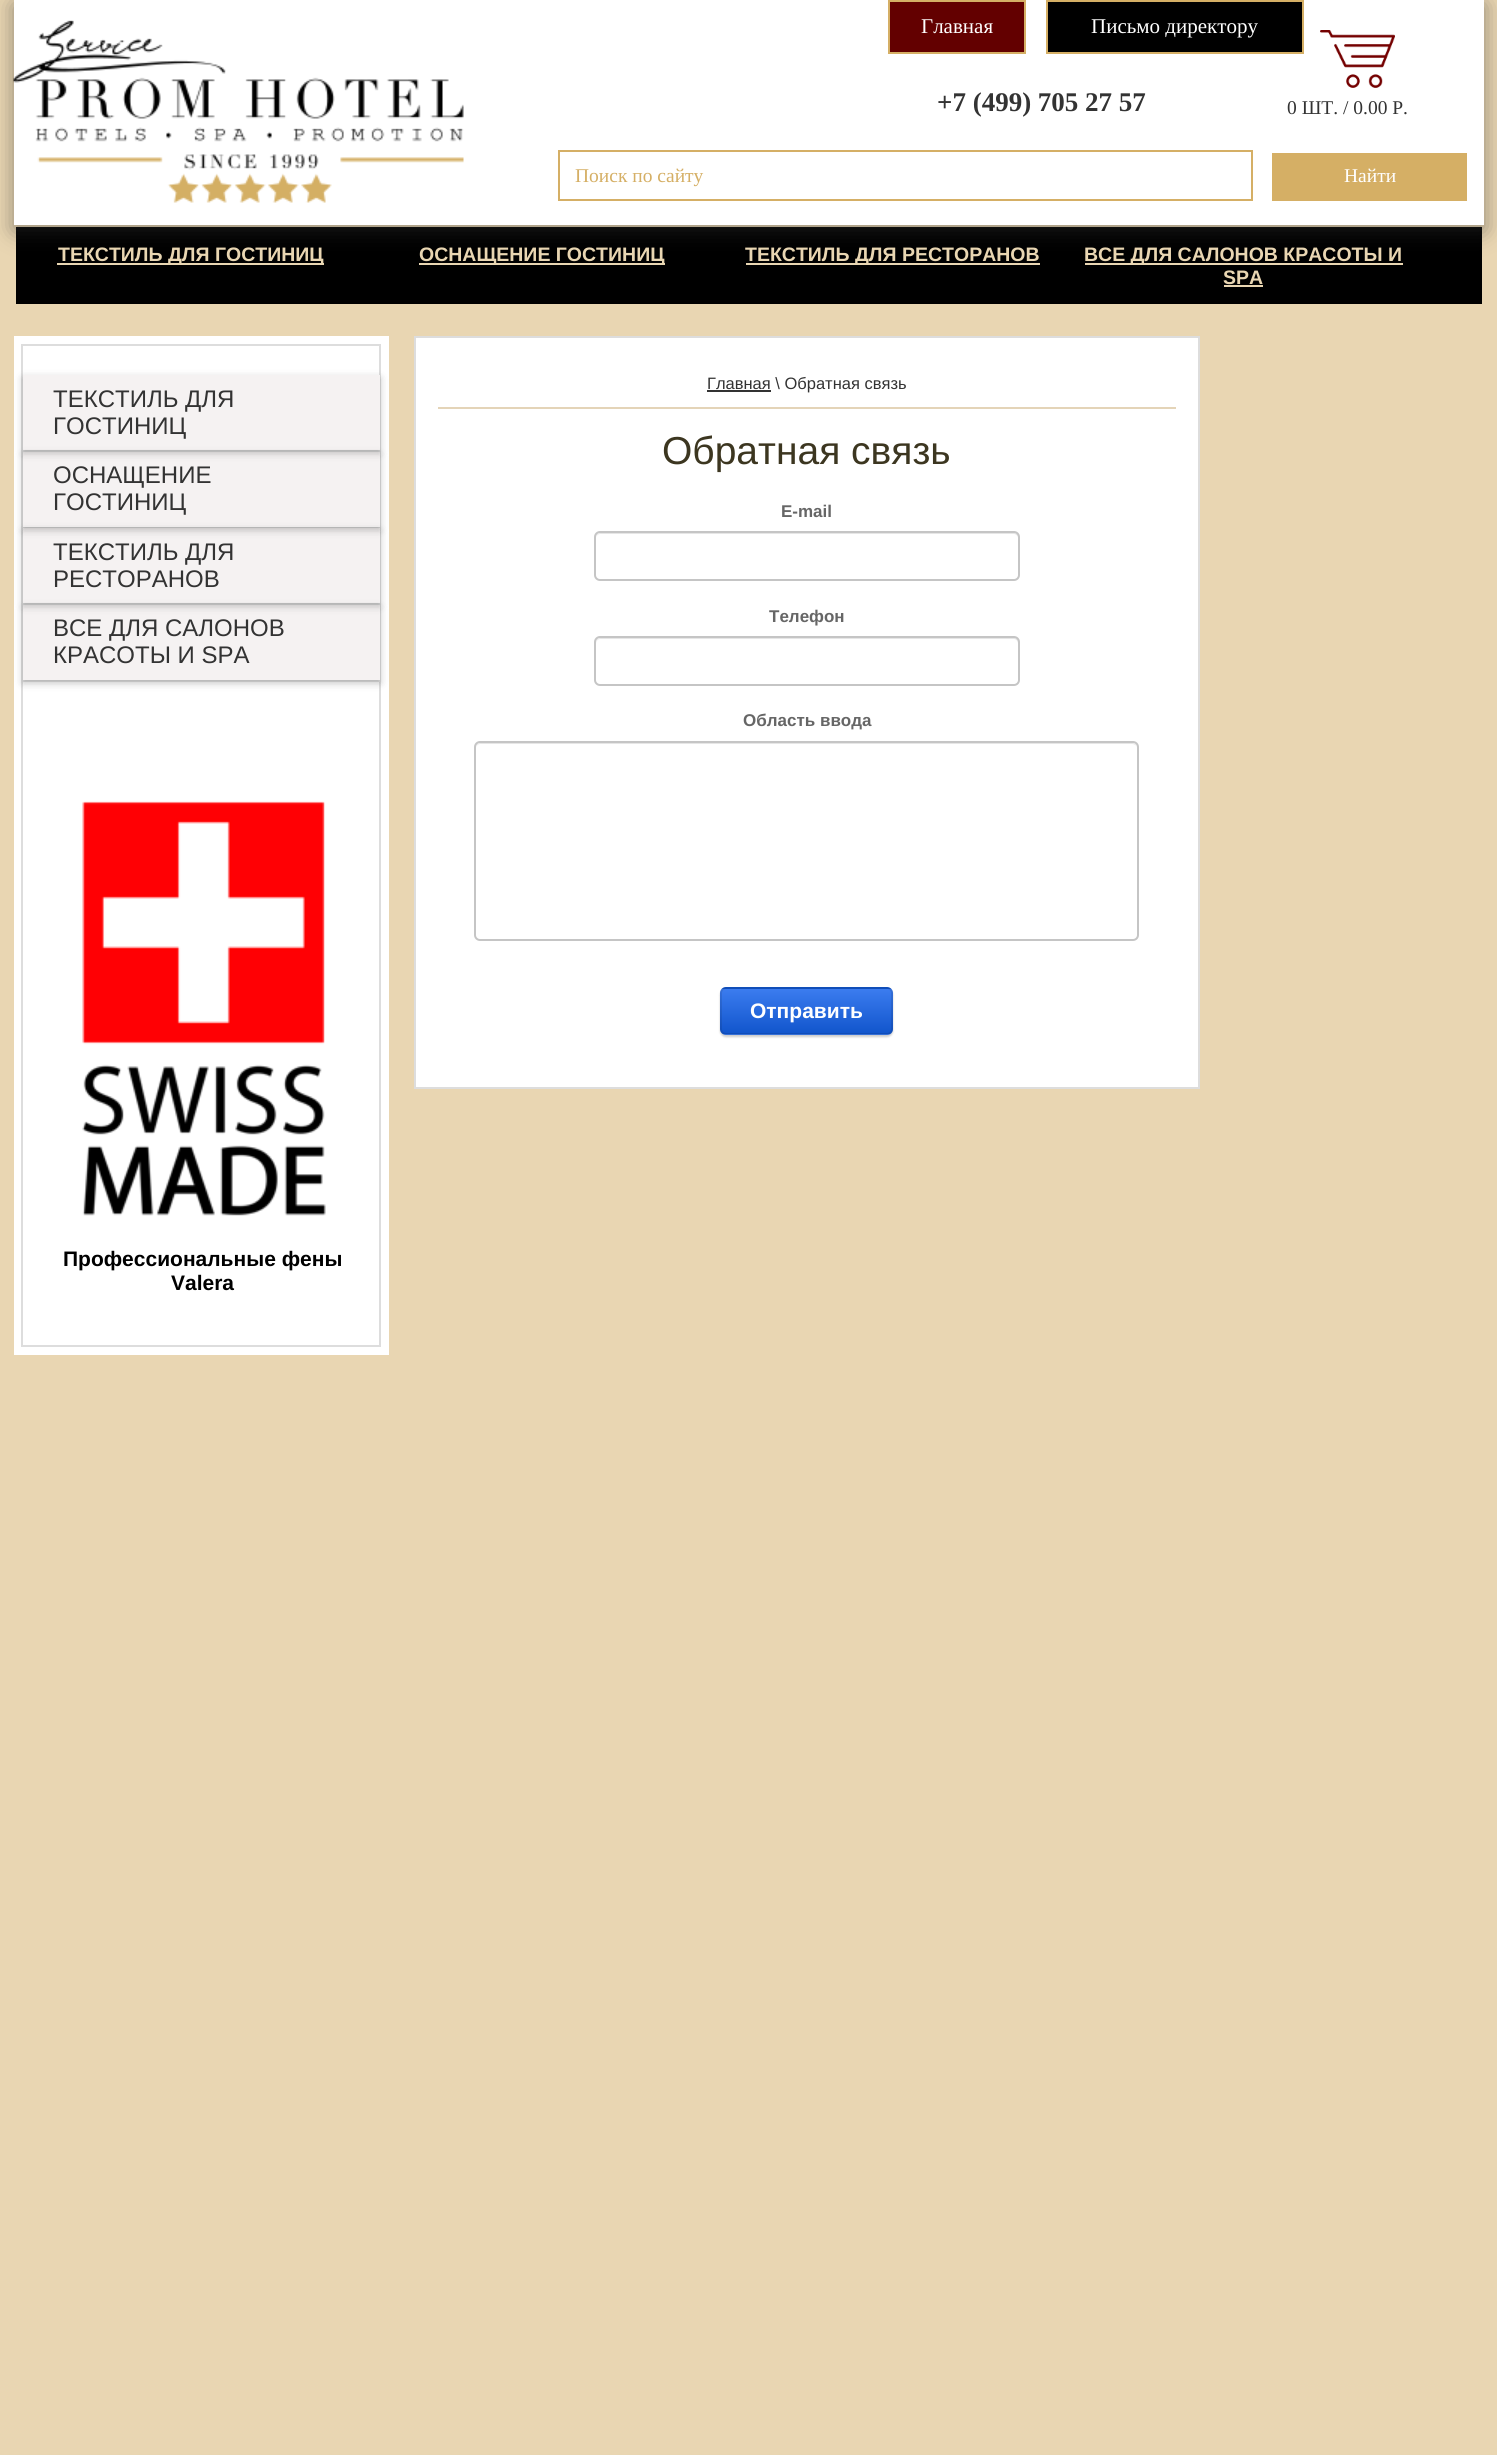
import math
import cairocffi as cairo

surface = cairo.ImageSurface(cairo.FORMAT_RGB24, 1497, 2455)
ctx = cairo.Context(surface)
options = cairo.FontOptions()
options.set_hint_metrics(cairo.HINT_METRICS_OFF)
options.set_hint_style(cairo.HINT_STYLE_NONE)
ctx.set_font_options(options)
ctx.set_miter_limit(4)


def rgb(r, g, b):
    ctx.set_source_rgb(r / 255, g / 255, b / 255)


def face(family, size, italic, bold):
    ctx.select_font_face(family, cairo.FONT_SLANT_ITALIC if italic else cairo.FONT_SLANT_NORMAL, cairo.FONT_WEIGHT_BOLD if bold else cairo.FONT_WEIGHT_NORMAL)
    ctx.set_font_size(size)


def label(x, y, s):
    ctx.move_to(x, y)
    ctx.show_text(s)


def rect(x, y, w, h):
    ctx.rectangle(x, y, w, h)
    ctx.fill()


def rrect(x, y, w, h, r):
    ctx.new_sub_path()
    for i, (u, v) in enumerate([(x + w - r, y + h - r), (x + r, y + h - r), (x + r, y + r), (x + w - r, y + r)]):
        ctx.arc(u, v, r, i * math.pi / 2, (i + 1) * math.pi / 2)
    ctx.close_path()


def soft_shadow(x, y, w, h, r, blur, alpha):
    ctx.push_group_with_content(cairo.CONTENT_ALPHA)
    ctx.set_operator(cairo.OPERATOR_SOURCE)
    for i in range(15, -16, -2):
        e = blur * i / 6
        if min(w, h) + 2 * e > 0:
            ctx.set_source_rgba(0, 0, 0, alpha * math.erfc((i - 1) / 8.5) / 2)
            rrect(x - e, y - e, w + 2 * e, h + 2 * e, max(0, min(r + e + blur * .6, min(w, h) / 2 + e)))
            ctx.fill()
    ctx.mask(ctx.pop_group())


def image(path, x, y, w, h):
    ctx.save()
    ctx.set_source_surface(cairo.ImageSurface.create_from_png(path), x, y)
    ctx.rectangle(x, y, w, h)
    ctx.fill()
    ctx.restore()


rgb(233, 214, 178)
ctx.paint()
rgb(0, 0, 0)
rect(16, 227, 1466, 77)
rgb(233, 214, 178)
rect(57, 263, 267, 2)
rect(419, 263, 246, 2)
rect(746, 263, 294, 2)
rect(1085, 263, 318, 2)
rgb(50, 50, 50)
soft_shadow(14, 5, 1470, 225, 0, 11, 0.5)
rgb(255, 255, 255)
rect(14, 0, 1470, 225)
image('image0.png', 13, 20, 451, 183)
rgb(99, 0, 0)
ctx.rectangle(889, 1, 136, 52)
ctx.fill_preserve()
rgb(213, 175, 101)
ctx.stroke()
face('Liberation Serif', 21, 0, 0)
rgb(255, 255, 255)
label(921, 33, 'Главная')
rgb(0, 0, 0)
ctx.rectangle(1047, 1, 256, 52)
ctx.fill_preserve()
rgb(213, 175, 101)
ctx.stroke()
rgb(255, 255, 255)
label(1091, 33, 'Письмо директору')
face('Liberation Serif', 27, 0, 1)
rgb(51, 51, 51)
label(937, 111, '+7 (499) 705 27 57')
image('image1.png', 1320, 30, 75, 58)
face('Liberation Serif', 19.5, 0, 0)
label(1287, 114, '0 ШТ. / 0.00 P.')
ctx.rectangle(559, 151, 693, 49)
rgb(213, 175, 101)
ctx.stroke()
label(575, 182, 'Поиск по сайту')
rect(1272, 153, 195, 48)
rgb(255, 255, 255)
label(1344, 182, 'Найти')
face('Liberation Sans', 19.5, 0, 1)
rgb(233, 214, 178)
label(58, 261, 'ТЕКСТИЛЬ ДЛЯ ГОСТИНИЦ')
label(419, 261, 'ОСНАЩЕНИЕ ГОСТИНИЦ')
label(745, 261, 'ТЕКСТИЛЬ ДЛЯ РЕСТОРАНОВ')
label(1084, 261, 'ВСЕ ДЛЯ САЛОНОВ КРАСОТЫ И')
label(1223, 284, 'SPA')
rect(1224, 285, 39, 2)
rgb(255, 255, 255)
rect(14, 336, 375, 1019)
ctx.rectangle(22, 345, 358, 1001)
rgb(221, 221, 221)
ctx.stroke()
rgb(245, 242, 242)
rect(23, 375, 357, 75)
rgb(228, 228, 228)
rect(23, 450, 357, 2)
rgb(245, 242, 242)
rect(23, 452, 357, 75)
ctx.save()
ctx.set_fill_rule(cairo.FILL_RULE_EVEN_ODD)
ctx.new_path()
ctx.move_to(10, 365)
ctx.line_to(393, 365)
ctx.line_to(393, 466)
ctx.line_to(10, 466)
ctx.close_path()
ctx.move_to(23, 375)
ctx.line_to(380, 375)
ctx.line_to(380, 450)
ctx.line_to(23, 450)
ctx.close_path()
ctx.clip()
rgb(50, 50, 50)
soft_shadow(23, 378, 357, 75, 0, 4, 0.3)
ctx.restore()
face('Liberation Sans', 24, 0, 0)
rgb(51, 51, 51)
label(53, 407, 'ТЕКСТИЛЬ ДЛЯ')
label(53, 434, 'ГОСТИНИЦ')
rgb(228, 228, 228)
rect(23, 527, 357, 1)
rgb(245, 242, 242)
rect(23, 528, 357, 75)
ctx.save()
ctx.set_fill_rule(cairo.FILL_RULE_EVEN_ODD)
ctx.new_path()
ctx.move_to(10, 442)
ctx.line_to(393, 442)
ctx.line_to(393, 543)
ctx.line_to(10, 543)
ctx.close_path()
ctx.move_to(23, 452)
ctx.line_to(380, 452)
ctx.line_to(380, 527)
ctx.line_to(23, 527)
ctx.close_path()
ctx.clip()
rgb(50, 50, 50)
soft_shadow(23, 455, 357, 75, 0, 4, 0.3)
ctx.restore()
rgb(51, 51, 51)
label(53, 483, 'ОСНАЩЕНИЕ')
label(53, 510, 'ГОСТИНИЦ')
rgb(228, 228, 228)
rect(23, 603, 357, 2)
rgb(245, 242, 242)
rect(23, 605, 357, 75)
ctx.save()
ctx.set_fill_rule(cairo.FILL_RULE_EVEN_ODD)
ctx.new_path()
ctx.move_to(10, 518)
ctx.line_to(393, 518)
ctx.line_to(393, 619)
ctx.line_to(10, 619)
ctx.close_path()
ctx.move_to(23, 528)
ctx.line_to(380, 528)
ctx.line_to(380, 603)
ctx.line_to(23, 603)
ctx.close_path()
ctx.clip()
rgb(50, 50, 50)
soft_shadow(23, 531, 357, 75, 0, 4, 0.3)
ctx.restore()
rgb(51, 51, 51)
label(53, 560, 'ТЕКСТИЛЬ ДЛЯ')
label(53, 587, 'РЕСТОРАНОВ')
rgb(228, 228, 228)
rect(23, 680, 357, 2)
ctx.save()
ctx.set_fill_rule(cairo.FILL_RULE_EVEN_ODD)
ctx.new_path()
ctx.move_to(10, 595)
ctx.line_to(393, 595)
ctx.line_to(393, 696)
ctx.line_to(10, 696)
ctx.close_path()
ctx.move_to(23, 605)
ctx.line_to(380, 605)
ctx.line_to(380, 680)
ctx.line_to(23, 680)
ctx.close_path()
ctx.clip()
rgb(50, 50, 50)
soft_shadow(23, 608, 357, 75, 0, 4, 0.3)
ctx.restore()
rgb(51, 51, 51)
label(53, 636, 'ВСЕ ДЛЯ САЛОНОВ')
label(53, 663, 'КРАСОТЫ И SPA')
image('image2.png', 82, 801, 244, 415)
face('Liberation Sans', 21, 0, 1)
rgb(0, 0, 0)
label(63, 1266, 'Профессиональные фены')
label(171, 1290, 'Valera')
rgb(255, 255, 255)
ctx.rectangle(415, 337, 784, 751)
ctx.fill_preserve()
rgb(221, 221, 221)
ctx.stroke()
rgb(228, 212, 184)
rect(438, 407, 738, 2)
rgb(51, 51, 51)
rect(707, 390, 64, 2)
face('Liberation Sans', 16.5, 0, 0)
label(707, 389, 'Главная \\ Обратная связь')
face('Liberation Sans', 39, 0, 0)
rgb(60, 54, 32)
label(662, 464, 'Обратная связь')
face('Liberation Sans', 17, 0, 1)
rgb(102, 102, 102)
label(781, 517, 'E-mail')
rgb(230, 230, 230)
ctx.new_path()
ctx.move_to(600, 534)
ctx.line_to(1014, 534)
ctx.curve_to(1016, 534, 1018, 536, 1018, 538)
ctx.line_to(1018, 577)
ctx.curve_to(1019, 576, 1019, 575, 1019, 574)
ctx.line_to(1019, 538)
ctx.curve_to(1019, 535, 1017, 533, 1014, 533)
ctx.line_to(601, 533)
ctx.curve_to(598, 533, 596, 535, 596, 538)
ctx.curve_to(596, 536, 598, 534, 600, 534)
ctx.close_path()
ctx.fill()
rrect(595, 532, 424, 48, 5)
rgb(197, 197, 197)
ctx.stroke()
rgb(102, 102, 102)
label(769, 622, 'Телефон')
rgb(230, 230, 230)
ctx.new_path()
ctx.move_to(600, 639)
ctx.line_to(1014, 639)
ctx.curve_to(1016, 639, 1018, 641, 1018, 644)
ctx.line_to(1018, 682)
ctx.curve_to(1019, 681, 1019, 680, 1019, 679)
ctx.line_to(1019, 643)
ctx.curve_to(1019, 640, 1017, 638, 1014, 638)
ctx.line_to(601, 638)
ctx.curve_to(598, 638, 596, 640, 596, 643)
ctx.line_to(596, 644)
ctx.curve_to(596, 641, 598, 639, 600, 639)
ctx.close_path()
ctx.fill()
rrect(595, 637, 424, 48, 5)
rgb(197, 197, 197)
ctx.stroke()
rgb(102, 102, 102)
label(743, 726, 'Область ввода')
rgb(230, 230, 230)
ctx.new_path()
ctx.move_to(480, 744)
ctx.line_to(1132, 744)
ctx.curve_to(1135, 744, 1137, 746, 1137, 748)
ctx.curve_to(1137, 745, 1135, 743, 1132, 743)
ctx.line_to(481, 743)
ctx.curve_to(478, 743, 476, 745, 476, 748)
ctx.curve_to(476, 746, 478, 744, 480, 744)
ctx.close_path()
ctx.fill()
rrect(475, 742, 663, 198, 5)
rgb(197, 197, 197)
ctx.stroke()
rgb(0, 0, 0)
soft_shadow(720, 989, 173, 48, 6, 1, 0.2)
ctx.save()
rrect(720, 987, 173, 48, 6)
ctx.clip()
gradient = cairo.LinearGradient(806, 944, 806, 989)
gradient.add_color_stop_rgba(0, 0.231, 0.486, 0.937, 1)
gradient.add_color_stop_rgba(1, 0.067, 0.333, 0.8, 1)
ctx.set_source(gradient)
rect(720, 987, 173, 2)
gradient = cairo.LinearGradient(806, 989, 806, 1034)
gradient.add_color_stop_rgba(0, 0.231, 0.486, 0.937, 1)
gradient.add_color_stop_rgba(1, 0.067, 0.333, 0.8, 1)
ctx.set_source(gradient)
rect(720, 989, 173, 45)
gradient = cairo.LinearGradient(806, 1034, 806, 1079)
gradient.add_color_stop_rgba(0, 0.231, 0.486, 0.937, 1)
gradient.add_color_stop_rgba(1, 0.067, 0.333, 0.8, 1)
ctx.set_source(gradient)
rect(720, 1034, 173, 1)
ctx.restore()
rrect(721, 988, 171, 46, 5)
ctx.set_source_rgba(0, 0, 0, 0.1)
ctx.stroke()
face('Liberation Sans', 21, 0, 1)
rgb(255, 255, 255)
label(750, 1018, 'Отправить')
surface.write_to_png('render.png')
